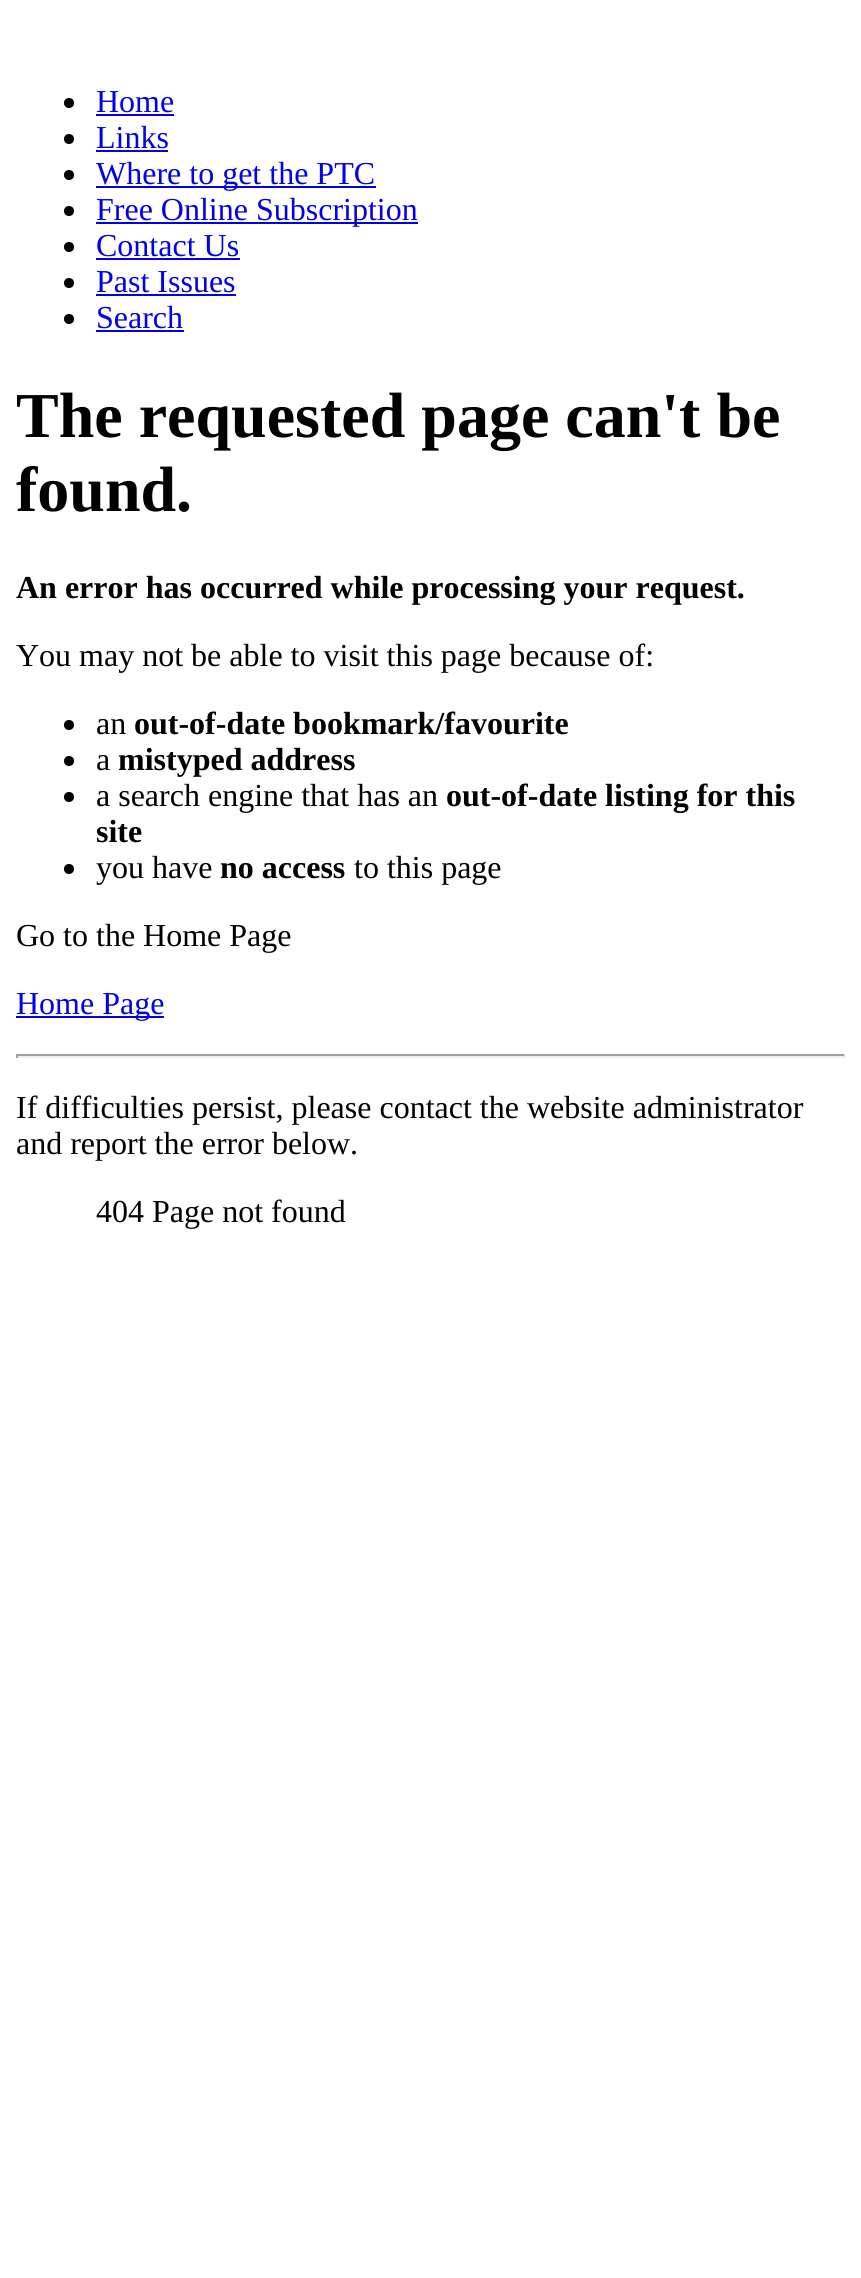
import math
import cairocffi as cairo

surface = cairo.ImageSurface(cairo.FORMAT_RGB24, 861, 2278)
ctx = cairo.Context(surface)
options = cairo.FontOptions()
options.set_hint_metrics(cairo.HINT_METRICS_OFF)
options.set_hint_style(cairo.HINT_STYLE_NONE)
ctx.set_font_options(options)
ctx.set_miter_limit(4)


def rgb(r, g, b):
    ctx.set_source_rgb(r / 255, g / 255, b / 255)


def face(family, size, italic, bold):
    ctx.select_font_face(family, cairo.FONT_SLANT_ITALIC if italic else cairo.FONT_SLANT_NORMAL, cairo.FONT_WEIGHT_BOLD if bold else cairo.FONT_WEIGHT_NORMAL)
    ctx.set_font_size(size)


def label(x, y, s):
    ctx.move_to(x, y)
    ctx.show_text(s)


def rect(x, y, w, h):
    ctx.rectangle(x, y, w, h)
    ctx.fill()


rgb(255, 255, 255)
ctx.paint()
rgb(0, 0, 0)
ctx.arc(69, 103, 5, 0, 2 * math.pi)
ctx.fill()
face('Liberation Serif', 32, 0, 0)
rgb(0, 0, 238)
label(96, 112, 'Home')
rect(96, 114, 78, 2)
rgb(0, 0, 0)
ctx.new_path()
ctx.arc(69, 139, 5, 0, 2 * math.pi)
ctx.fill()
rgb(0, 0, 238)
label(96, 148, 'Links')
rect(96, 150, 72, 2)
rgb(0, 0, 0)
ctx.new_path()
ctx.arc(69, 175, 5, 0, 2 * math.pi)
ctx.fill()
rgb(0, 0, 238)
rect(96, 186, 280, 2)
label(96, 184, 'Where to get the PTC')
rgb(0, 0, 0)
ctx.new_path()
ctx.arc(69, 211, 5, 0, 2 * math.pi)
ctx.fill()
rgb(0, 0, 238)
rect(96, 222, 322, 2)
label(96, 220, 'Free Online Subscription')
rgb(0, 0, 0)
ctx.new_path()
ctx.arc(69, 247, 5, 0, 2 * math.pi)
ctx.fill()
rgb(0, 0, 238)
label(96, 256, 'Contact Us')
rect(96, 258, 144, 2)
rgb(0, 0, 0)
ctx.new_path()
ctx.arc(69, 283, 5, 0, 2 * math.pi)
ctx.fill()
rgb(0, 0, 238)
label(96, 292, 'Past Issues')
rect(96, 294, 140, 2)
rgb(0, 0, 0)
ctx.new_path()
ctx.arc(69, 319, 5, 0, 2 * math.pi)
ctx.fill()
rgb(0, 0, 238)
label(96, 328, 'Search')
rect(96, 330, 88, 2)
face('Liberation Serif', 64, 0, 1)
rgb(0, 0, 0)
label(16, 437, 'The requested page can\'t be')
label(16, 511, 'found.')
face('Liberation Serif', 32, 0, 1)
label(16, 598, 'An error has occurred while processing your request.')
face('Liberation Serif', 32, 0, 0)
label(16, 666, 'You may not be able to visit this page because of:')
ctx.new_path()
ctx.arc(69, 725, 5, 0, 2 * math.pi)
ctx.fill()
label(96, 734, 'an')
face('Liberation Serif', 32, 0, 1)
label(134, 734, 'out-of-date bookmark/favourite')
ctx.new_path()
ctx.arc(69, 761, 5, 0, 2 * math.pi)
ctx.fill()
face('Liberation Serif', 32, 0, 0)
label(96, 770, 'a')
face('Liberation Serif', 32, 0, 1)
label(118, 770, 'mistyped address')
ctx.new_path()
ctx.arc(69, 797, 5, 0, 2 * math.pi)
ctx.fill()
face('Liberation Serif', 32, 0, 0)
label(96, 806, 'a search engine that has an')
face('Liberation Serif', 32, 0, 1)
label(446, 806, 'out-of-date listing for this')
label(96, 842, 'site')
ctx.new_path()
ctx.arc(69, 869, 5, 0, 2 * math.pi)
ctx.fill()
face('Liberation Serif', 32, 0, 0)
label(96, 878, 'you have')
face('Liberation Serif', 32, 0, 1)
label(220, 878, 'no access')
face('Liberation Serif', 32, 0, 0)
label(354, 878, 'to this page')
label(16, 946, 'Go to the Home Page')
rgb(0, 0, 238)
rect(16, 1016, 148, 2)
label(16, 1014, 'Home Page')
rgb(159, 159, 159)
rect(16, 1054, 830, 2)
rgb(238, 238, 238)
rect(844, 1054, 2, 4)
rect(16, 1056, 830, 2)
rgb(159, 159, 159)
rect(16, 1054, 2, 4)
rgb(0, 0, 0)
label(16, 1118, 'If difficulties persist, please contact the website administrator')
label(16, 1154, 'and report the error below.')
label(96, 1222, '404 Page not found')
surface.write_to_png('render.png')
